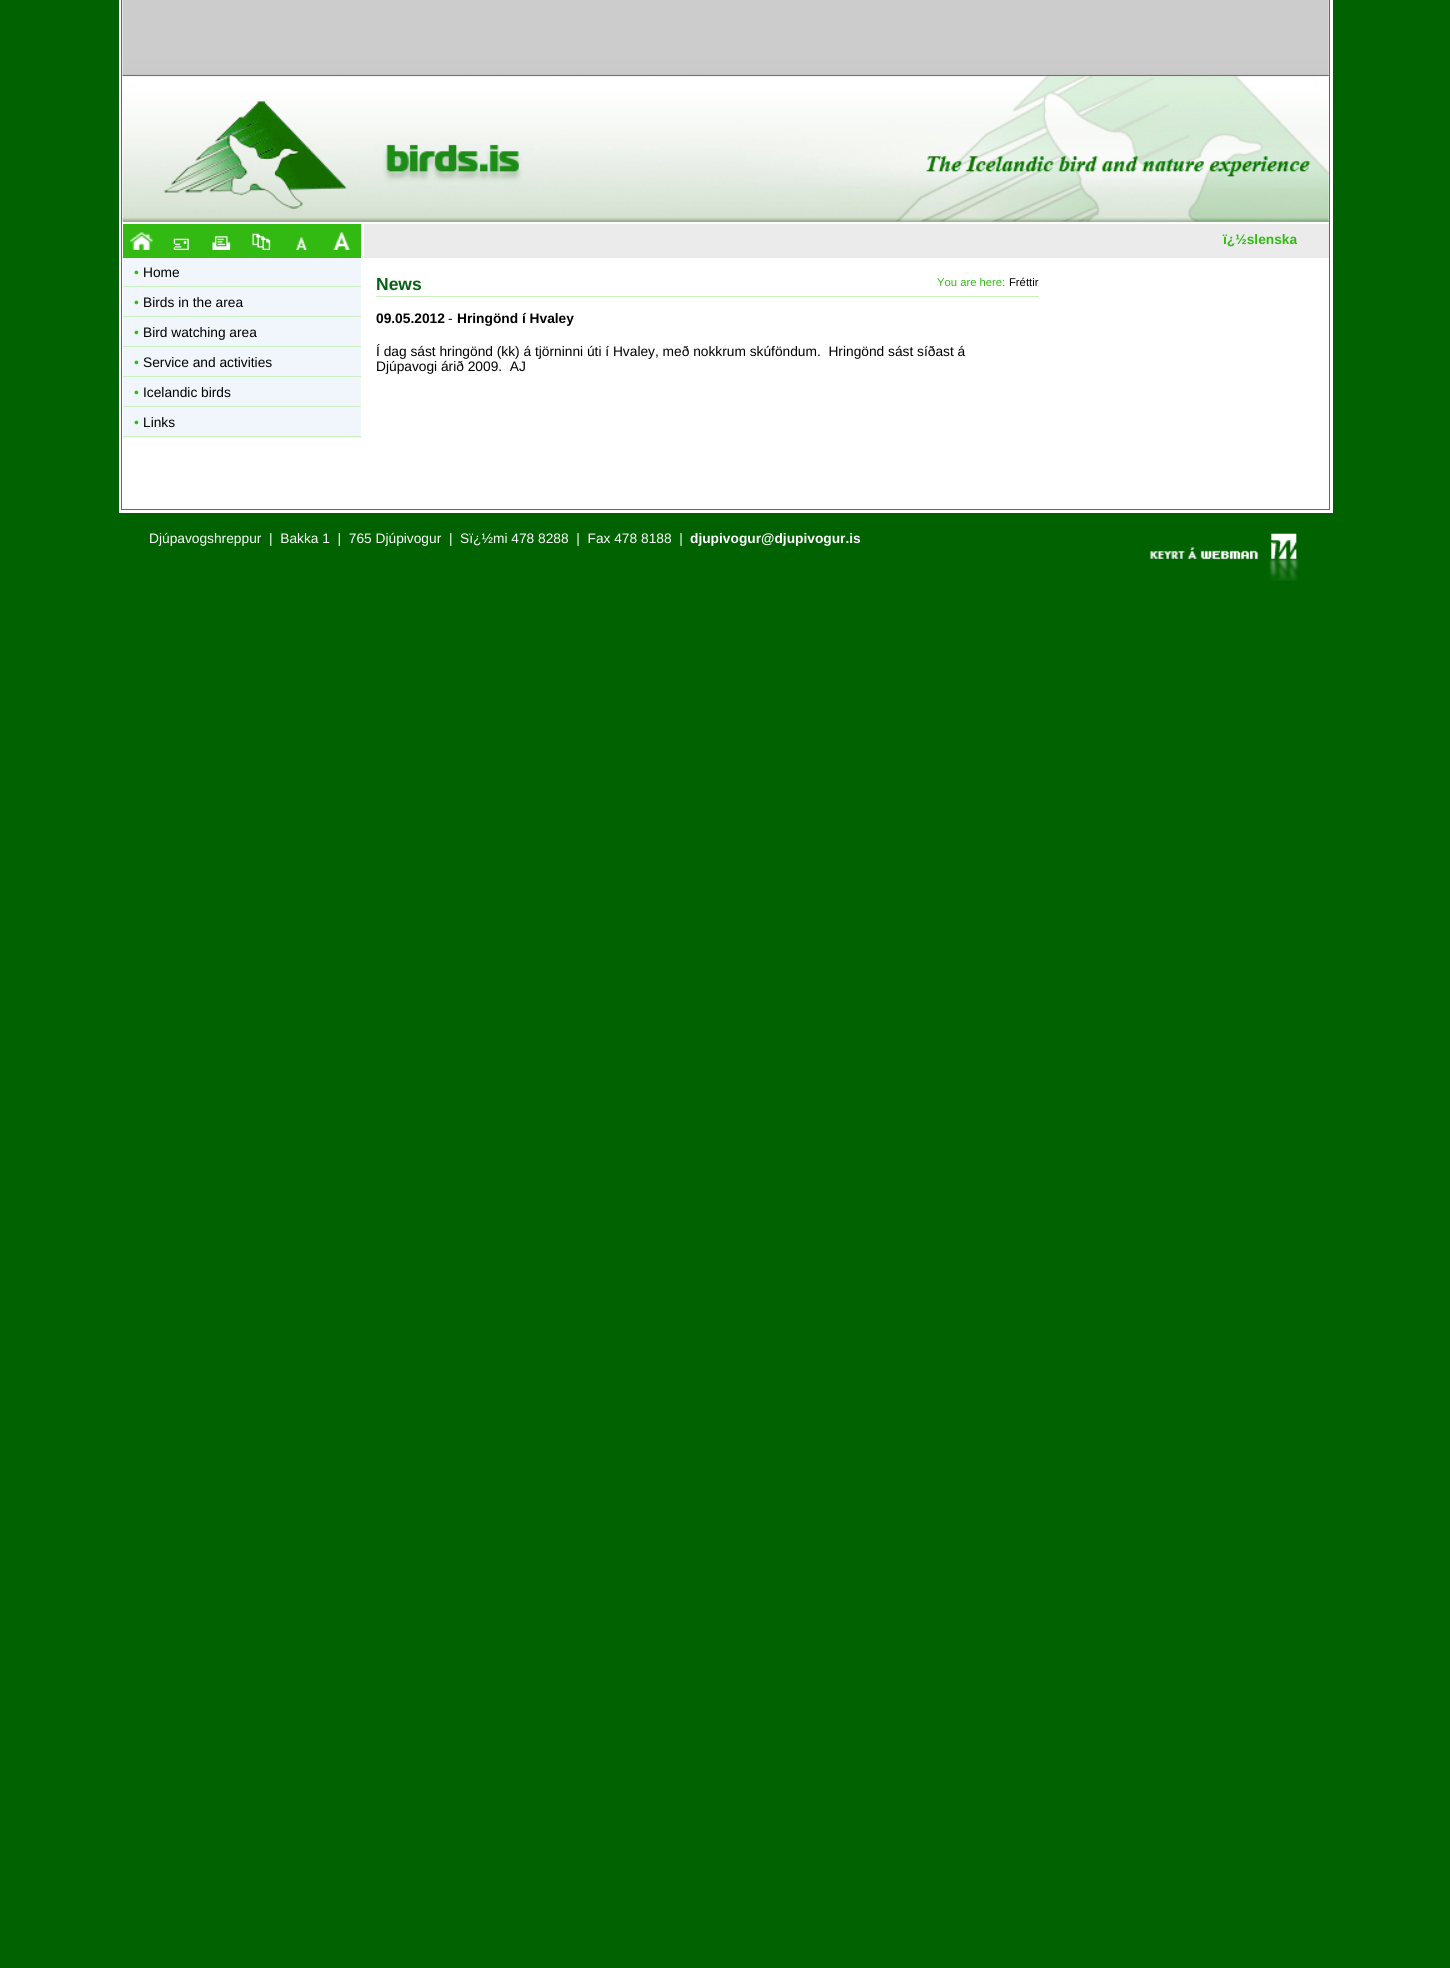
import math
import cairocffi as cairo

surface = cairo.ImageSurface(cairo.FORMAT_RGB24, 1450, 1968)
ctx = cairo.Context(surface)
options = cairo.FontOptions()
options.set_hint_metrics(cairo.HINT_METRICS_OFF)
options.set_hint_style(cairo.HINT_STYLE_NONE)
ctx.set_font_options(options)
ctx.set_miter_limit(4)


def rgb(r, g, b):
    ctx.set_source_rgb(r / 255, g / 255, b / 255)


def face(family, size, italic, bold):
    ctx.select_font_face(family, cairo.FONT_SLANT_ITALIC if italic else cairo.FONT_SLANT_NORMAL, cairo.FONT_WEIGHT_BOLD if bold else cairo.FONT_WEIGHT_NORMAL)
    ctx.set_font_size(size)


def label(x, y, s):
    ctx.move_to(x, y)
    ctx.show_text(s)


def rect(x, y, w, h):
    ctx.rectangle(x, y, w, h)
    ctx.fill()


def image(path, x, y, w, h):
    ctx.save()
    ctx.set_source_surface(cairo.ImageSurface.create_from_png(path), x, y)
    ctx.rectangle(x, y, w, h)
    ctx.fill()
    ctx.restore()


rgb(1, 98, 1)
ctx.paint()
rgb(255, 255, 255)
rect(119, 0, 1214, 513)
rgb(102, 102, 102)
rect(1329, 0, 1, 510)
rect(121, 509, 1209, 1)
rect(121, 0, 1, 510)
image('image0.png', 122, 0, 1207, 77)
rgb(164, 164, 164)
rect(123, 221, 1206, 1)
image('image1.png', 122, 76, 1207, 146)
rgb(50, 186, 19)
rect(123, 224, 238, 34)
image('image2.png', 130, 232, 23, 18)
image('image3.png', 173, 238, 16, 12)
image('image4.png', 212, 236, 19, 14)
image('image5.png', 252, 233, 19, 17)
image('image6.png', 296, 237, 11, 13)
image('image7.png', 333, 232, 18, 18)
rgb(240, 246, 251)
rect(123, 258, 238, 180)
rgb(203, 238, 195)
rect(123, 286, 238, 1)
face('Liberation Sans', 13.75, 0, 0)
rgb(50, 186, 19)
label(134, 277, '•')
rgb(0, 0, 0)
label(143, 277, 'Home')
rgb(203, 238, 195)
rect(123, 316, 238, 1)
rgb(50, 186, 19)
label(134, 307, '•')
rgb(0, 0, 0)
label(143, 307, 'Birds in the area')
rgb(203, 238, 195)
rect(123, 346, 238, 1)
rgb(50, 186, 19)
label(134, 337, '•')
rgb(0, 0, 0)
label(143, 337, 'Bird watching area')
rgb(203, 238, 195)
rect(123, 376, 238, 1)
rgb(50, 186, 19)
label(134, 367, '•')
rgb(0, 0, 0)
label(143, 367, 'Service and activities')
rgb(203, 238, 195)
rect(123, 406, 238, 1)
rgb(50, 186, 19)
label(134, 397, '•')
rgb(0, 0, 0)
label(143, 397, 'Icelandic birds')
rgb(203, 238, 195)
rect(123, 436, 238, 1)
rgb(50, 186, 19)
label(134, 427, '•')
rgb(0, 0, 0)
label(143, 427, 'Links')
rgb(235, 235, 235)
rect(364, 224, 965, 34)
face('Liberation Sans', 13.75, 0, 1)
rgb(50, 186, 19)
label(1223, 244, 'ï¿½slenska')
rgb(203, 238, 195)
rect(376, 296, 663, 1)
face('Liberation Sans', 17.5, 0, 1)
rgb(7, 96, 21)
label(376, 290, 'News')
face('Liberation Sans', 11.25, 0, 0)
rgb(50, 186, 19)
label(937, 286, 'You are here:')
rgb(0, 0, 0)
label(1009, 286, 'Fréttir')
face('Liberation Sans', 13.75, 0, 1)
label(376, 323, '09.05.2012')
face('Liberation Sans', 13.75, 0, 0)
label(448, 323, '-')
face('Liberation Sans', 13.75, 0, 1)
label(457, 323, 'Hringönd í Hvaley')
face('Liberation Sans', 13.75, 0, 0)
label(376, 356, 'Í dag sást hringönd (kk) á tjörninni úti í Hvaley, með nokkrum skúföndum.  Hringönd sást síðast á')
label(376, 371, 'Djúpavogi árið 2009.  AJ')
rgb(255, 255, 255)
label(149, 543, 'Djúpavogshreppur  |  Bakka 1  |  765 Djúpivogur  |  Sï¿½mi 478 8288  |  Fax 478 8188  |')
face('Liberation Sans', 13.75, 0, 1)
label(690, 543, 'djupivogur@djupivogur.is')
image('image8.png', 1149, 533, 150, 48)
surface.write_to_png('render.png')
